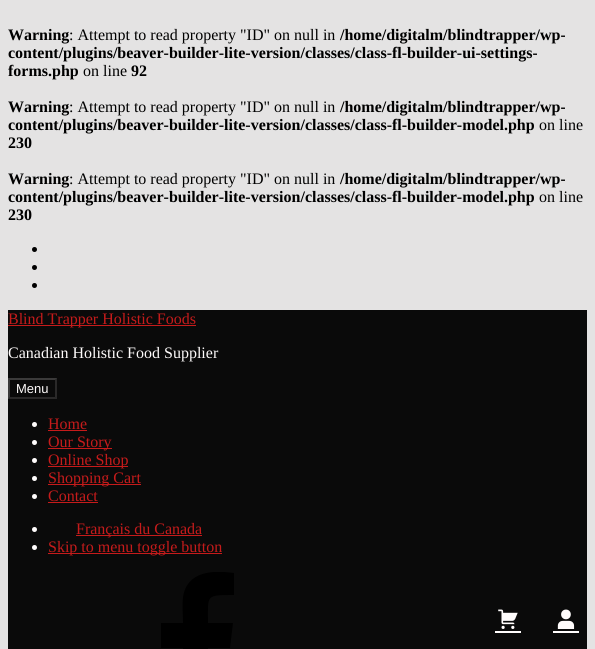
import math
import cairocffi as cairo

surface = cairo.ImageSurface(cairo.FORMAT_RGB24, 595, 649)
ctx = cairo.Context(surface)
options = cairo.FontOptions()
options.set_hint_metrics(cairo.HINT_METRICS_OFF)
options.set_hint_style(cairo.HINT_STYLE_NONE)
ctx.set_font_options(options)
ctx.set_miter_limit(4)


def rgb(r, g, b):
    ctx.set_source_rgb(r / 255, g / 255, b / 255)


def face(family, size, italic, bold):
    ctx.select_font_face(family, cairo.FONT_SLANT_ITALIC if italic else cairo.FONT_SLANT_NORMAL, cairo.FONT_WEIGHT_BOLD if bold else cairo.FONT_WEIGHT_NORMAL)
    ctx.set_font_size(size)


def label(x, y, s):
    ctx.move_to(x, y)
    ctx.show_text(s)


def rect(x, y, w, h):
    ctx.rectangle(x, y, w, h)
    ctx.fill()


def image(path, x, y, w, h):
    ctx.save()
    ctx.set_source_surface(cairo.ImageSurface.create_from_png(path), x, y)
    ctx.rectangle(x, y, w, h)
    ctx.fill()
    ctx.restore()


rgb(228, 227, 227)
ctx.paint()
face('Liberation Serif', 16, 0, 1)
rgb(0, 0, 0)
label(8, 40, 'Warning')
face('Liberation Serif', 16, 0, 0)
label(69, 40, ': Attempt to read property "ID" on null in')
face('Liberation Serif', 16, 0, 1)
label(340, 40, '/home/digitalm/blindtrapper/wp-')
label(8, 58, 'content/plugins/beaver-builder-lite-version/classes/class-fl-builder-ui-settings-')
label(8, 76, 'forms.php')
face('Liberation Serif', 16, 0, 0)
label(83, 76, 'on line')
face('Liberation Serif', 16, 0, 1)
label(131, 76, '92')
label(8, 112, 'Warning')
face('Liberation Serif', 16, 0, 0)
label(69, 112, ': Attempt to read property "ID" on null in')
face('Liberation Serif', 16, 0, 1)
label(340, 112, '/home/digitalm/blindtrapper/wp-')
label(8, 130, 'content/plugins/beaver-builder-lite-version/classes/class-fl-builder-model.php')
face('Liberation Serif', 16, 0, 0)
label(539, 130, 'on line')
face('Liberation Serif', 16, 0, 1)
label(8, 148, '230')
label(8, 184, 'Warning')
face('Liberation Serif', 16, 0, 0)
label(69, 184, ': Attempt to read property "ID" on null in')
face('Liberation Serif', 16, 0, 1)
label(340, 184, '/home/digitalm/blindtrapper/wp-')
label(8, 202, 'content/plugins/beaver-builder-lite-version/classes/class-fl-builder-model.php')
face('Liberation Serif', 16, 0, 0)
label(539, 202, 'on line')
face('Liberation Serif', 16, 0, 1)
label(8, 220, '230')
ctx.new_path()
ctx.arc(34.5, 249.5, 2.5, 0, 2 * math.pi)
ctx.fill()
ctx.arc(34.5, 267.5, 2.5, 0, 2 * math.pi)
ctx.fill()
ctx.arc(34.5, 285.5, 2.5, 0, 2 * math.pi)
ctx.fill()
rgb(10, 10, 10)
rect(8, 310, 579, 339)
rgb(198, 27, 27)
rect(8, 325, 188, 1)
face('Liberation Serif', 16, 0, 0)
label(8, 324, 'Blind Trapper Holistic Foods')
rgb(255, 252, 252)
label(8, 358, 'Canadian Holistic Food Supplier')
rgb(59, 58, 58)
ctx.new_path()
ctx.move_to(8, 378)
ctx.line_to(57, 378)
ctx.line_to(55, 380)
ctx.line_to(10, 380)
ctx.close_path()
ctx.fill()
ctx.set_source_rgba(0.667, 0.659, 0.659, 0.2)
ctx.new_path()
ctx.move_to(57, 378)
ctx.line_to(57, 399)
ctx.line_to(55, 397)
ctx.line_to(55, 380)
ctx.close_path()
ctx.fill()
ctx.new_path()
ctx.move_to(57, 399)
ctx.line_to(8, 399)
ctx.line_to(10, 397)
ctx.line_to(55, 397)
ctx.close_path()
ctx.fill()
ctx.set_source_rgba(1, 0.988, 0.988, 0.2)
ctx.new_path()
ctx.move_to(8, 399)
ctx.line_to(8, 378)
ctx.line_to(10, 380)
ctx.line_to(10, 397)
ctx.close_path()
ctx.fill()
face('Liberation Sans', 13, 0, 0)
rgb(255, 252, 252)
label(16, 393, 'Menu')
ctx.new_path()
ctx.arc(34.5, 424.5, 2.5, 0, 2 * math.pi)
ctx.fill()
face('Liberation Serif', 16, 0, 0)
rgb(198, 27, 27)
label(48, 429, 'Home')
rect(48, 430, 39, 1)
rgb(255, 252, 252)
ctx.new_path()
ctx.arc(34.5, 442.5, 2.5, 0, 2 * math.pi)
ctx.fill()
rgb(198, 27, 27)
rect(48, 448, 64, 1)
label(48, 447, 'Our Story')
rgb(255, 252, 252)
ctx.new_path()
ctx.arc(34.5, 460.5, 2.5, 0, 2 * math.pi)
ctx.fill()
rgb(198, 27, 27)
rect(48, 466, 80, 1)
label(48, 465, 'Online Shop')
rgb(255, 252, 252)
ctx.new_path()
ctx.arc(34.5, 478.5, 2.5, 0, 2 * math.pi)
ctx.fill()
rgb(198, 27, 27)
rect(48, 484, 93, 1)
label(48, 483, 'Shopping Cart')
rgb(255, 252, 252)
ctx.new_path()
ctx.arc(34.5, 496.5, 2.5, 0, 2 * math.pi)
ctx.fill()
rgb(198, 27, 27)
label(48, 501, 'Contact')
rect(48, 502, 50, 1)
rgb(255, 252, 252)
ctx.new_path()
ctx.arc(34.5, 529.5, 2.5, 0, 2 * math.pi)
ctx.fill()
rgb(198, 27, 27)
rect(76, 535, 126, 1)
label(76, 534, 'Français du Canada')
rgb(255, 252, 252)
ctx.new_path()
ctx.arc(34.5, 547.5, 2.5, 0, 2 * math.pi)
ctx.fill()
rgb(198, 27, 27)
rect(48, 553, 174, 1)
label(48, 552, 'Skip to menu toggle button')
ctx.save()
ctx.rectangle(48, 572, 300, 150)
ctx.clip()
rgb(0, 0, 0)
ctx.new_path()
ctx.move_to(234, 573)
ctx.line_to(234, 595)
ctx.curve_to(205, 595, 208, 595, 208, 623)
ctx.line_to(233, 623)
ctx.line_to(230, 648)
ctx.line_to(208, 648)
ctx.line_to(208, 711)
ctx.line_to(183, 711)
ctx.line_to(183, 648)
ctx.line_to(161, 648)
ctx.line_to(161, 623)
ctx.line_to(183, 623)
ctx.curve_to(183, 615, 182, 606, 183, 597)
ctx.curve_to(187, 571, 213, 570, 234, 573)
ctx.close_path()
ctx.fill()
ctx.restore()
rgb(255, 252, 252)
rect(495, 631, 26, 2)
image('image0.png', 498, 609, 20, 20)
rect(553, 631, 26, 2)
image('image1.png', 557, 609, 18, 20)
surface.write_to_png('render.png')
